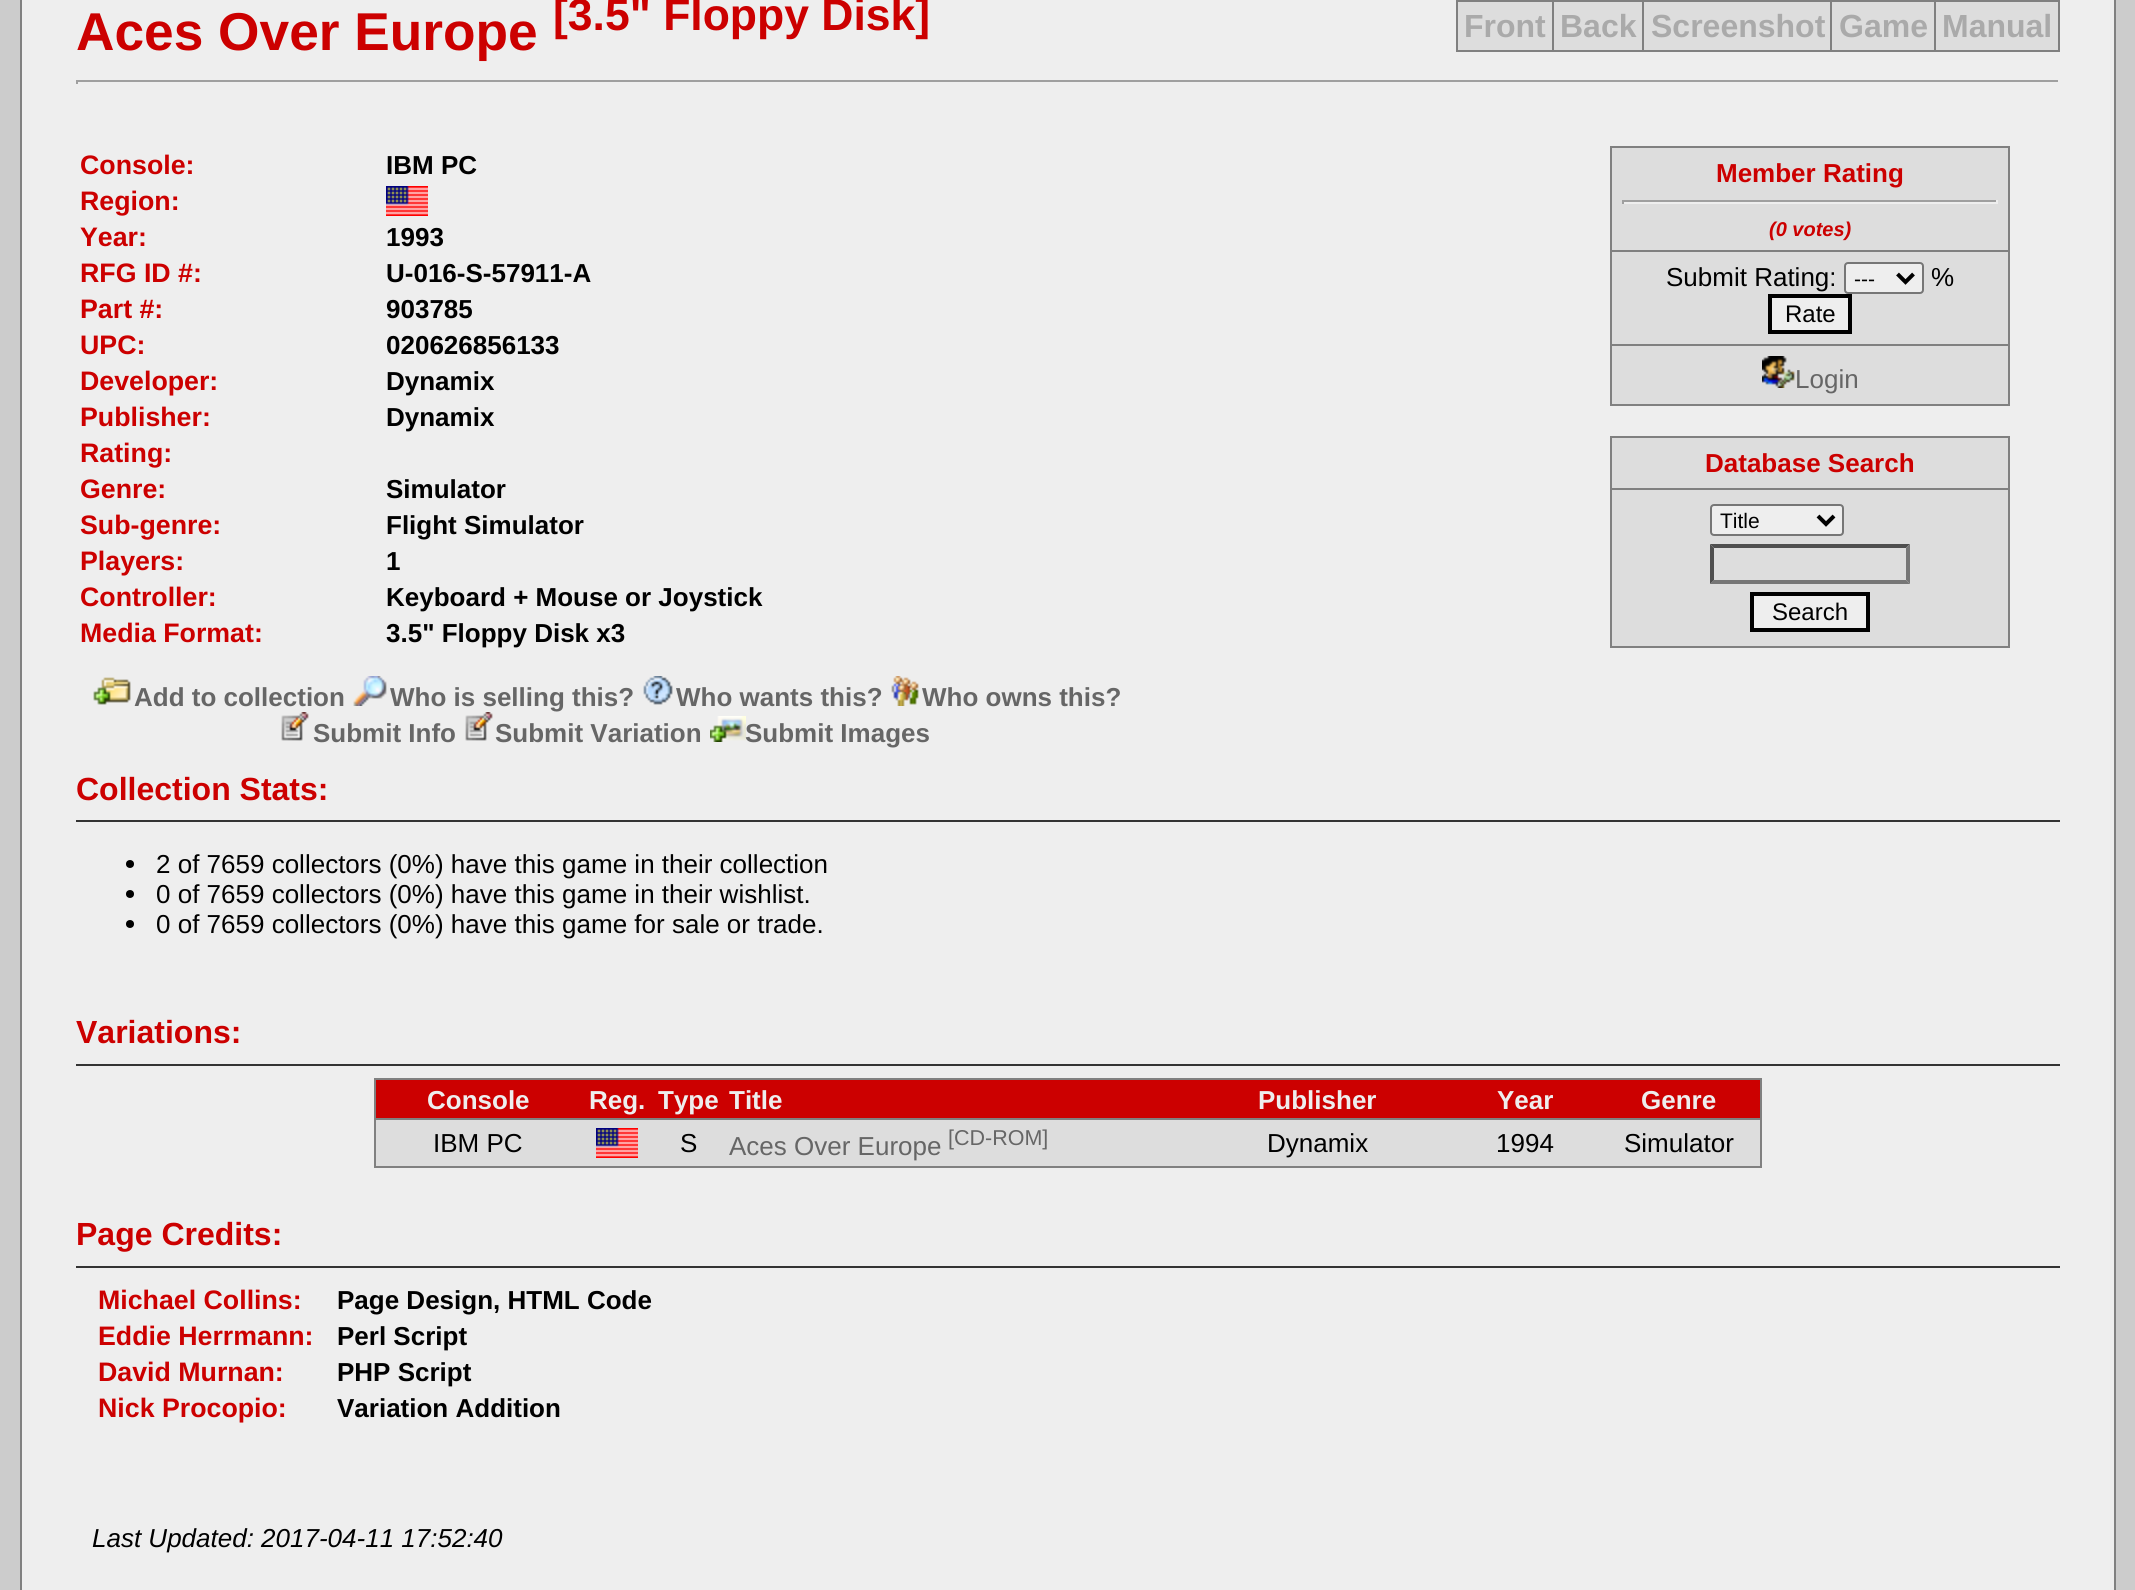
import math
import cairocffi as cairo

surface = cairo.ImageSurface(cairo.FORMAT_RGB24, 2135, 1590)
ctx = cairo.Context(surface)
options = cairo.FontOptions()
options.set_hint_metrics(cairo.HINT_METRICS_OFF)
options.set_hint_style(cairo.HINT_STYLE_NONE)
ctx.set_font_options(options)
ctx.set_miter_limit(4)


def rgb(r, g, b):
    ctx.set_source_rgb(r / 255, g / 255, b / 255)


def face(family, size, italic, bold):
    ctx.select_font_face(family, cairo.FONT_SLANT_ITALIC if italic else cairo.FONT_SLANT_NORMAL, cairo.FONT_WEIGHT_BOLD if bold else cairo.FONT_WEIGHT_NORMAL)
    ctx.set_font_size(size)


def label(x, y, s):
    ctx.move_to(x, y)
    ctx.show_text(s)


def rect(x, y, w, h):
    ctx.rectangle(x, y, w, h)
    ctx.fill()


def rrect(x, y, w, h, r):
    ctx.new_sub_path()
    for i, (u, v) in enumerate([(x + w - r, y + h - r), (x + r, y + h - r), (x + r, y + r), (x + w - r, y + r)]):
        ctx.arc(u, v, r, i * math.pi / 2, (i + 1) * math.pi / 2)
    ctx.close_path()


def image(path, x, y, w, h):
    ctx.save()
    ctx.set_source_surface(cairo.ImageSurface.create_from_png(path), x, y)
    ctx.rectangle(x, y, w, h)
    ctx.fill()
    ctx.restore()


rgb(204, 204, 204)
ctx.paint()
rgb(128, 128, 128)
rect(20, 0, 2096, 1590)
rgb(238, 238, 238)
rect(22, 0, 2092, 1590)
face('Liberation Sans', 53.25, 0, 1)
rgb(204, 0, 0)
label(76, 50, 'Aces Over Europe')
face('Liberation Sans', 44.5, 0, 1)
label(553, 30, '[3.5" Floppy Disk]')
rgb(128, 128, 128)
rect(1456, 0, 604, 52)
rgb(221, 221, 221)
rect(1458, 2, 94, 48)
face('Liberation Sans', 32, 0, 1)
rgb(170, 170, 170)
label(1464, 37, 'Front')
rgb(221, 221, 221)
rect(1554, 2, 88, 48)
rgb(170, 170, 170)
label(1560, 37, 'Back')
rgb(221, 221, 221)
rect(1644, 2, 186, 48)
rgb(170, 170, 170)
label(1651, 37, 'Screenshot')
rgb(221, 221, 221)
rect(1832, 2, 102, 48)
rgb(170, 170, 170)
label(1839, 37, 'Game')
rgb(221, 221, 221)
rect(1936, 2, 122, 48)
rgb(170, 170, 170)
label(1942, 37, 'Manual')
rgb(159, 159, 159)
rect(76, 80, 1984, 2)
rgb(238, 238, 238)
rect(2058, 80, 2, 4)
rgb(159, 159, 159)
rect(76, 80, 2, 4)
face('Liberation Sans', 26.75, 0, 1)
rgb(204, 0, 0)
label(80, 174, 'Console:')
face('Liberation Sans', 26, 0, 1)
rgb(0, 0, 0)
label(386, 174, 'IBM PC')
face('Liberation Sans', 26.75, 0, 1)
rgb(204, 0, 0)
label(80, 210, 'Region:')
image('image0.png', 386, 186, 42, 30)
label(80, 246, 'Year:')
face('Liberation Sans', 26, 0, 1)
rgb(0, 0, 0)
label(386, 246, '1993')
face('Liberation Sans', 26.75, 0, 1)
rgb(204, 0, 0)
label(80, 282, 'RFG ID #:')
face('Liberation Sans', 26, 0, 1)
rgb(0, 0, 0)
label(386, 282, 'U-016-S-57911-A')
face('Liberation Sans', 26.75, 0, 1)
rgb(204, 0, 0)
label(80, 318, 'Part #:')
face('Liberation Sans', 26, 0, 1)
rgb(0, 0, 0)
label(386, 318, '903785')
face('Liberation Sans', 26.75, 0, 1)
rgb(204, 0, 0)
label(80, 354, 'UPC:')
face('Liberation Sans', 26, 0, 1)
rgb(0, 0, 0)
label(386, 354, '020626856133')
face('Liberation Sans', 26.75, 0, 1)
rgb(204, 0, 0)
label(80, 390, 'Developer:')
face('Liberation Sans', 26, 0, 1)
rgb(0, 0, 0)
label(386, 390, 'Dynamix')
face('Liberation Sans', 26.75, 0, 1)
rgb(204, 0, 0)
label(80, 426, 'Publisher:')
face('Liberation Sans', 26, 0, 1)
rgb(0, 0, 0)
label(386, 426, 'Dynamix')
face('Liberation Sans', 26.75, 0, 1)
rgb(204, 0, 0)
label(80, 462, 'Rating:')
label(80, 498, 'Genre:')
face('Liberation Sans', 26, 0, 1)
rgb(0, 0, 0)
label(386, 498, 'Simulator')
face('Liberation Sans', 26.75, 0, 1)
rgb(204, 0, 0)
label(80, 534, 'Sub-genre:')
face('Liberation Sans', 26, 0, 1)
rgb(0, 0, 0)
label(386, 534, 'Flight Simulator')
face('Liberation Sans', 26.75, 0, 1)
rgb(204, 0, 0)
label(80, 570, 'Players:')
face('Liberation Sans', 26, 0, 1)
rgb(0, 0, 0)
label(386, 570, '1')
face('Liberation Sans', 26.75, 0, 1)
rgb(204, 0, 0)
label(80, 606, 'Controller:')
face('Liberation Sans', 26, 0, 1)
rgb(0, 0, 0)
label(386, 606, 'Keyboard + Mouse or Joystick')
face('Liberation Sans', 26.75, 0, 1)
rgb(204, 0, 0)
label(80, 642, 'Media Format:')
face('Liberation Sans', 26, 0, 1)
rgb(0, 0, 0)
label(386, 642, '3.5" Floppy Disk x3')
rgb(128, 128, 128)
rect(1610, 146, 400, 260)
rgb(221, 221, 221)
rect(1612, 148, 396, 102)
rgb(204, 0, 0)
label(1716, 182, 'Member Rating')
rgb(159, 159, 159)
rect(1622, 200, 376, 2)
rgb(238, 238, 238)
rect(1996, 200, 2, 4)
rect(1622, 202, 376, 2)
rgb(159, 159, 159)
rect(1622, 200, 2, 4)
face('Liberation Sans', 20, 1, 1)
rgb(204, 0, 0)
label(1769, 236, '(0 votes)')
rgb(221, 221, 221)
rect(1612, 252, 396, 92)
face('Liberation Sans', 26, 0, 0)
rgb(0, 0, 0)
label(1666, 286, 'Submit Rating:')
rgb(238, 238, 238)
rrect(1845, 263, 78, 30, 3)
ctx.fill_preserve()
rgb(118, 118, 118)
ctx.stroke()
ctx.new_path()
ctx.move_to(1897.5, 274)
ctx.line_to(1905.5, 282)
ctx.line_to(1913.5, 274)
rgb(0, 0, 0)
ctx.set_line_width(4)
ctx.stroke()
face('Liberation Sans', 21, 0, 0)
label(1854, 286, '---')
face('Liberation Sans', 26, 0, 0)
label(1931, 286, '%')
rgb(238, 238, 238)
ctx.rectangle(1770, 296, 80, 36)
ctx.fill_preserve()
rgb(0, 0, 0)
ctx.stroke()
face('Liberation Sans', 24, 0, 0)
label(1785, 322, 'Rate')
rgb(221, 221, 221)
rect(1612, 346, 396, 58)
image('image1.png', 1762, 356, 33, 32)
face('Liberation Sans', 26, 0, 0)
rgb(102, 102, 102)
label(1795, 388, 'Login')
rgb(128, 128, 128)
rect(1610, 436, 400, 212)
rgb(221, 221, 221)
rect(1612, 438, 396, 50)
face('Liberation Sans', 26, 0, 1)
rgb(204, 0, 0)
label(1705, 472, 'Database Search')
rgb(221, 221, 221)
rect(1612, 490, 396, 156)
rgb(238, 238, 238)
rrect(1711, 505, 132, 30, 3)
ctx.fill_preserve()
rgb(118, 118, 118)
ctx.set_line_width(2)
ctx.stroke()
ctx.new_path()
ctx.move_to(1818, 516)
ctx.line_to(1826, 524)
ctx.line_to(1834, 516)
rgb(0, 0, 0)
ctx.set_line_width(4)
ctx.stroke()
face('Liberation Sans', 21, 0, 0)
label(1720, 528, 'Title')
rgb(79, 79, 79)
ctx.new_path()
ctx.move_to(1710, 544)
ctx.line_to(1910, 544)
ctx.line_to(1906, 548)
ctx.line_to(1714, 548)
ctx.close_path()
ctx.fill()
rgb(118, 118, 118)
ctx.new_path()
ctx.move_to(1910, 544)
ctx.line_to(1910, 584)
ctx.line_to(1906, 580)
ctx.line_to(1906, 548)
ctx.close_path()
ctx.fill()
ctx.new_path()
ctx.move_to(1910, 584)
ctx.line_to(1710, 584)
ctx.line_to(1714, 580)
ctx.line_to(1906, 580)
ctx.close_path()
ctx.fill()
rgb(79, 79, 79)
ctx.new_path()
ctx.move_to(1710, 584)
ctx.line_to(1710, 544)
ctx.line_to(1714, 548)
ctx.line_to(1714, 580)
ctx.close_path()
ctx.fill()
rgb(238, 238, 238)
ctx.rectangle(1752, 594, 116, 36)
ctx.fill_preserve()
rgb(0, 0, 0)
ctx.stroke()
face('Liberation Sans', 24, 0, 0)
label(1772, 620, 'Search')
image('image2.png', 93, 677, 38, 28)
face('Liberation Sans', 26, 0, 1)
rgb(102, 102, 102)
label(134, 706, 'Add to collection')
image('image3.png', 353, 676, 34, 30)
label(390, 706, 'Who is selling this?')
image('image4.png', 643, 676, 30, 29)
label(676, 706, 'Who wants this?')
image('image5.png', 891, 676, 28, 30)
label(922, 706, 'Who owns this?')
image('image6.png', 281, 712, 28, 29)
label(313, 742, 'Submit Info')
image('image6.png', 465, 712, 28, 29)
label(495, 742, 'Submit Variation')
image('image7.png', 710, 716, 36, 26)
label(745, 742, 'Submit Images')
face('Liberation Sans', 32, 0, 1)
rgb(204, 0, 0)
label(76, 800, 'Collection Stats:')
rgb(51, 51, 51)
rect(76, 820, 1984, 2)
rgb(0, 0, 0)
ctx.new_path()
ctx.arc(130, 864, 4, 0, 2 * math.pi)
ctx.fill()
face('Liberation Sans', 26, 0, 0)
label(156, 873, '2 of 7659 collectors (0%) have this game in their collection')
ctx.new_path()
ctx.arc(130, 894, 4, 0, 2 * math.pi)
ctx.fill()
label(156, 903, '0 of 7659 collectors (0%) have this game in their wishlist.')
ctx.new_path()
ctx.arc(130, 924, 4, 0, 2 * math.pi)
ctx.fill()
label(156, 933, '0 of 7659 collectors (0%) have this game for sale or trade.')
face('Liberation Sans', 32, 0, 1)
rgb(204, 0, 0)
label(76, 1043, 'Variations:')
rgb(51, 51, 51)
rect(76, 1064, 1984, 2)
rgb(128, 128, 128)
rect(374, 1078, 1388, 90)
rgb(204, 0, 0)
rect(376, 1080, 1384, 38)
face('Liberation Sans', 26, 0, 1)
rgb(238, 238, 238)
label(427, 1109, 'Console')
label(589, 1109, 'Reg.')
label(658, 1109, 'Type')
label(729, 1109, 'Title')
label(1258, 1109, 'Publisher')
label(1497, 1109, 'Year')
label(1641, 1109, 'Genre')
rgb(221, 221, 221)
rect(376, 1120, 1384, 46)
face('Liberation Sans', 26, 0, 0)
rgb(0, 0, 0)
label(433, 1152, 'IBM PC')
image('image0.png', 596, 1128, 42, 30)
label(680, 1152, 'S')
rgb(102, 102, 102)
label(729, 1155, 'Aces Over Europe')
face('Liberation Sans', 21.5, 0, 0)
label(948, 1145, '[CD-ROM]')
face('Liberation Sans', 26, 0, 0)
rgb(0, 0, 0)
label(1267, 1152, 'Dynamix')
label(1496, 1152, '1994')
label(1624, 1152, 'Simulator')
face('Liberation Sans', 32, 0, 1)
rgb(204, 0, 0)
label(76, 1245, 'Page Credits:')
rgb(51, 51, 51)
rect(76, 1266, 1984, 2)
face('Liberation Sans', 26.75, 0, 1)
rgb(204, 0, 0)
label(98, 1309, 'Michael Collins:')
face('Liberation Sans', 26, 0, 1)
rgb(0, 0, 0)
label(337, 1309, 'Page Design, HTML Code')
face('Liberation Sans', 26.75, 0, 1)
rgb(204, 0, 0)
label(98, 1345, 'Eddie Herrmann:')
face('Liberation Sans', 26, 0, 1)
rgb(0, 0, 0)
label(337, 1345, 'Perl Script')
face('Liberation Sans', 26.75, 0, 1)
rgb(204, 0, 0)
label(98, 1381, 'David Murnan:')
face('Liberation Sans', 26, 0, 1)
rgb(0, 0, 0)
label(337, 1381, 'PHP Script')
face('Liberation Sans', 26.75, 0, 1)
rgb(204, 0, 0)
label(98, 1417, 'Nick Procopio:')
face('Liberation Sans', 26, 0, 1)
rgb(0, 0, 0)
label(337, 1417, 'Variation Addition')
face('Liberation Sans', 26, 1, 0)
label(92, 1547, 'Last Updated: 2017-04-11 17:52:40')
surface.write_to_png('render.png')
